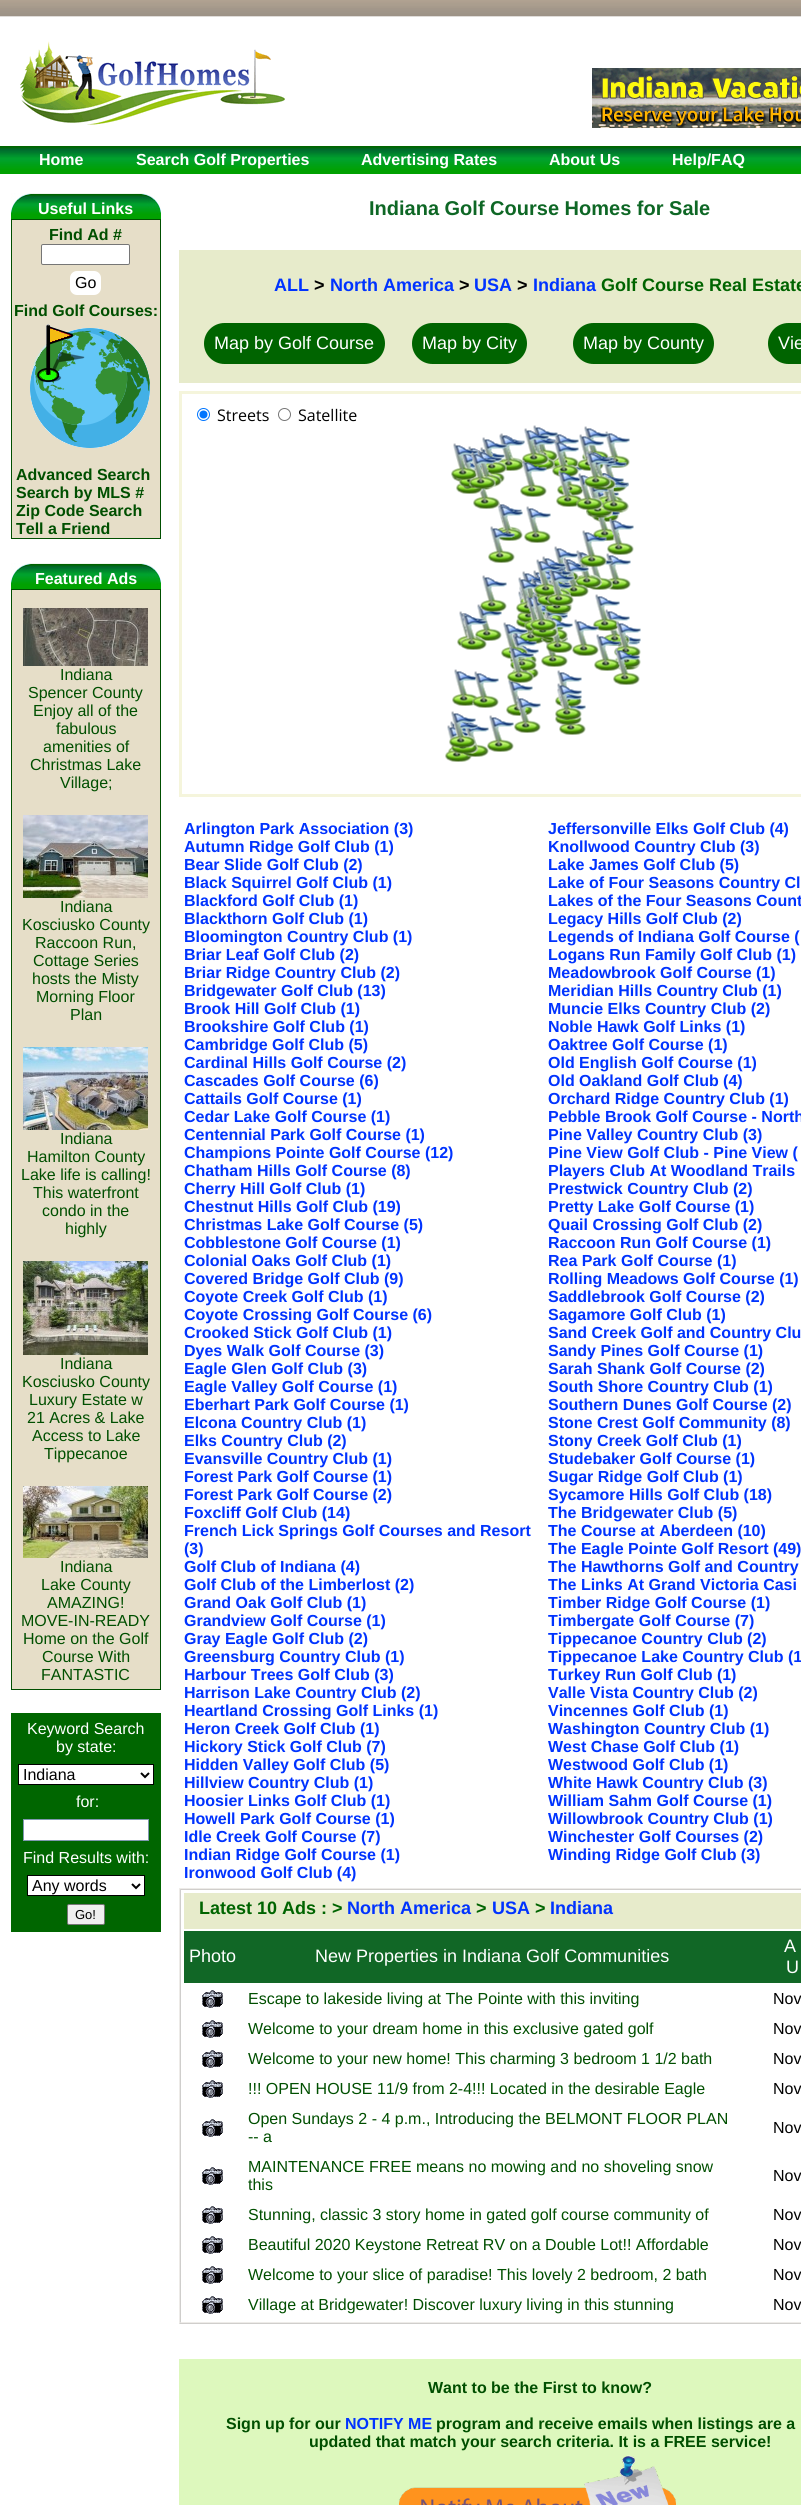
import math
import cairocffi as cairo

surface = cairo.ImageSurface(cairo.FORMAT_RGB24, 801, 2505)
ctx = cairo.Context(surface)
options = cairo.FontOptions()
options.set_hint_metrics(cairo.HINT_METRICS_OFF)
options.set_hint_style(cairo.HINT_STYLE_NONE)
ctx.set_font_options(options)
ctx.set_miter_limit(4)


def rgb(r, g, b):
    ctx.set_source_rgb(r / 255, g / 255, b / 255)


def face(family, size, italic, bold):
    ctx.select_font_face(family, cairo.FONT_SLANT_ITALIC if italic else cairo.FONT_SLANT_NORMAL, cairo.FONT_WEIGHT_BOLD if bold else cairo.FONT_WEIGHT_NORMAL)
    ctx.set_font_size(size)


def label(x, y, s):
    ctx.move_to(x, y)
    ctx.show_text(s)


def rect(x, y, w, h):
    ctx.rectangle(x, y, w, h)
    ctx.fill()


def rrect(x, y, w, h, r):
    ctx.new_sub_path()
    for i, (u, v) in enumerate([(x + w - r, y + h - r), (x + r, y + h - r), (x + r, y + r), (x + w - r, y + r)]):
        ctx.arc(u, v, r, i * math.pi / 2, (i + 1) * math.pi / 2)
    ctx.close_path()


def image(path, x, y, w, h):
    ctx.save()
    ctx.set_source_surface(cairo.ImageSurface.create_from_png(path), x, y)
    ctx.rectangle(x, y, w, h)
    ctx.fill()
    ctx.restore()


rgb(255, 255, 255)
ctx.paint()
image('image0.png', 0, 0, 801, 17)
image('image1.png', 0, 0, 801, 35)
image('image2.png', 20, 41, 265, 84)
image('image3.png', 592, 68, 209, 60)
image('image4.png', 0, 146, 801, 28)
face('Liberation Sans', 16, 0, 1)
rgb(255, 255, 255)
label(39, 165, 'Home')
label(136, 165, 'Search Golf Properties')
label(361, 165, 'Advertising Rates')
label(549, 165, 'About Us')
label(672, 165, 'Help/FAQ')
image('image5.png', 11, 193, 150, 26)
label(38, 214, 'Useful Links')
rgb(230, 222, 200)
ctx.rectangle(11.5, 219.5, 149, 319)
ctx.fill_preserve()
rgb(0, 79, 0)
ctx.set_line_width(1)
ctx.stroke()
label(49, 240, 'Find Ad #')
rgb(255, 255, 255)
rrect(41.5, 244.5, 88, 20, 1.5)
ctx.fill_preserve()
rgb(118, 118, 118)
ctx.stroke()
rgb(255, 255, 255)
rrect(70, 271, 31, 24, 7)
ctx.fill()
face('Liberation Sans', 16, 0, 0)
rgb(0, 0, 0)
label(75, 288, 'Go')
face('Liberation Sans', 16, 0, 1)
rgb(0, 79, 0)
label(14, 316, 'Find Golf Courses:')
image('image6.png', 30, 324, 120, 124)
label(16, 480, 'Advanced Search')
label(16, 498, 'Search by MLS #')
label(16, 516, 'Zip Code Search')
label(16, 534, 'Tell a Friend')
image('image5.png', 11, 563, 150, 26)
rgb(255, 255, 255)
label(35, 584, 'Featured Ads')
rgb(230, 222, 200)
ctx.rectangle(11.5, 589.5, 149, 1100)
ctx.fill_preserve()
rgb(0, 79, 0)
ctx.stroke()
image('image7.png', 23, 608, 125, 58)
face('Liberation Sans', 16, 0, 0)
label(60, 680, 'Indiana')
label(28, 698, 'Spencer County')
label(33, 716, 'Enjoy all of the')
label(56, 734, 'fabulous')
label(43, 752, 'amenities of')
label(30, 770, 'Christmas Lake')
label(60, 788, 'Village;')
image('image8.png', 23, 815, 125, 83)
label(60, 912, 'Indiana')
label(22, 930, 'Kosciusko County')
label(35, 948, 'Raccoon Run,')
label(33, 966, 'Cottage Series')
label(32, 984, 'hosts the Misty')
label(36, 1002, 'Morning Floor')
label(70, 1020, 'Plan')
image('image9.png', 23, 1047, 125, 83)
label(60, 1144, 'Indiana')
label(27, 1162, 'Hamilton County')
label(21, 1180, 'Lake life is calling!')
label(33, 1198, 'This waterfront')
label(42, 1216, 'condo in the')
label(65, 1234, 'highly')
image('image10.png', 23, 1261, 125, 94)
label(60, 1369, 'Indiana')
label(22, 1387, 'Kosciusko County')
label(29, 1405, 'Luxury Estate w')
label(27, 1423, '21 Acres & Lake')
label(32, 1441, 'Access to Lake')
label(44, 1459, 'Tippecanoe')
image('image11.png', 23, 1486, 125, 72)
label(60, 1572, 'Indiana')
label(41, 1590, 'Lake County')
label(47, 1608, 'AMAZING!')
label(21, 1626, 'MOVE-IN-READY')
label(23, 1644, 'Home on the Golf')
label(42, 1662, 'Course With')
label(41, 1680, 'FANTASTIC')
rgb(0, 102, 0)
rect(11, 1713, 150, 219)
rgb(255, 255, 255)
label(27, 1734, 'Keyword Search')
label(56, 1752, 'by state:')
ctx.rectangle(18.5, 1764.5, 135, 20)
ctx.fill_preserve()
rgb(0, 0, 0)
ctx.stroke()
ctx.new_path()
ctx.move_to(141, 1773)
ctx.line_to(145, 1777)
ctx.line_to(149, 1773)
ctx.set_line_width(2)
ctx.stroke()
label(23, 1780, 'Indiana')
rgb(255, 255, 255)
label(76, 1807, 'for:')
ctx.rectangle(23.5, 1819.5, 125, 21)
ctx.fill_preserve()
rgb(128, 152, 176)
ctx.set_line_width(1)
ctx.stroke()
rgb(255, 255, 255)
label(23, 1863, 'Find Results with:')
ctx.rectangle(27.5, 1875.5, 117, 20)
ctx.fill_preserve()
rgb(0, 0, 0)
ctx.stroke()
ctx.new_path()
ctx.move_to(132, 1884)
ctx.line_to(136, 1888)
ctx.line_to(140, 1884)
ctx.set_line_width(2)
ctx.stroke()
label(32, 1891, 'Any words')
rgb(239, 239, 239)
rrect(67.5, 1904.5, 37, 20, 1.5)
ctx.fill_preserve()
rgb(118, 118, 118)
ctx.set_line_width(1)
ctx.stroke()
face('Liberation Sans', 13, 0, 0)
rgb(0, 0, 0)
label(75, 1919, 'Go!')
face('Liberation Sans', 20, 0, 1)
rgb(14, 103, 37)
label(369, 215, 'Indiana Golf Course Homes for Sale')
rgb(231, 235, 203)
rect(179, 250, 622, 133)
face('Liberation Sans', 18, 0, 1)
rgb(0, 51, 255)
label(274, 291, 'ALL')
rgb(0, 0, 0)
label(314, 291, '>')
rgb(0, 51, 255)
label(330, 291, 'North America')
rgb(0, 0, 0)
label(459, 291, '>')
rgb(0, 51, 255)
label(474, 291, 'USA')
rgb(0, 0, 0)
label(517, 291, '>')
rgb(0, 51, 255)
label(533, 291, 'Indiana')
rgb(0, 100, 0)
label(601, 291, 'Golf Course Real Estate')
rrect(204, 323, 181, 41, 20.5)
ctx.fill()
face('Liberation Sans', 18, 0, 0)
rgb(255, 255, 255)
label(214, 349, 'Map by Golf Course')
rgb(0, 100, 0)
rrect(412, 323, 115, 41, 20.5)
ctx.fill()
rgb(255, 255, 255)
label(422, 349, 'Map by City')
rgb(0, 100, 0)
rrect(573, 323, 141, 41, 20.5)
ctx.fill()
rgb(255, 255, 255)
label(583, 349, 'Map by County')
rgb(0, 100, 0)
rrect(768, 323, 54, 41, 20.5)
ctx.fill()
rgb(255, 255, 255)
label(778, 349, 'Vie')
ctx.rectangle(180.5, 392.5, 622, 403)
rgb(245, 245, 220)
ctx.set_line_width(3)
ctx.stroke()
ctx.arc(203.5, 414.5, 6, 0, 2 * math.pi)
rgb(0, 117, 255)
ctx.set_line_width(1)
ctx.stroke()
ctx.arc(203.5, 414.5, 4, 0, 2 * math.pi)
ctx.fill()
face('Open Sans', 16, 0, 0)
rgb(0, 0, 0)
label(217, 421, 'Streets')
ctx.new_path()
ctx.arc(284.5, 414.5, 6, 0, 2 * math.pi)
rgb(118, 118, 118)
ctx.stroke()
rgb(0, 0, 0)
label(298, 421, 'Satellite')
image('image37.png', 557, 466, 27, 30)
image('image19.png', 539, 438, 19, 31)
image('image16.png', 552, 432, 27, 36)
image('image12.png', 533, 425, 25, 37)
image('image14.png', 603, 431, 27, 37)
image('image34.png', 603, 457, 25, 35)
image('image13.png', 582, 426, 27, 35)
image('image14.png', 498, 433, 27, 37)
image('image18.png', 497, 434, 27, 37)
image('image22.png', 531, 439, 25, 31)
image('image15.png', 522, 428, 28, 37)
image('image24.png', 452, 445, 23, 37)
image('image26.png', 480, 447, 26, 37)
image('image25.png', 468, 446, 26, 31)
image('image33.png', 470, 454, 25, 36)
image('image17.png', 480, 437, 28, 37)
image('image45.png', 613, 482, 16, 31)
image('image28.png', 588, 450, 27, 36)
image('image20.png', 577, 434, 27, 37)
image('image48.png', 496, 502, 26, 37)
image('image50.png', 498, 504, 25, 37)
image('image38.png', 473, 472, 28, 37)
image('image35.png', 456, 459, 27, 35)
image('image27.png', 476, 450, 27, 37)
image('image31.png', 459, 454, 28, 34)
image('image21.png', 451, 443, 27, 37)
image('image23.png', 552, 440, 27, 37)
image('image29.png', 469, 452, 28, 37)
image('image47.png', 603, 486, 16, 26)
image('image49.png', 592, 491, 27, 31)
image('image42.png', 598, 473, 25, 33)
image('image51.png', 593, 511, 28, 30)
image('image44.png', 586, 485, 28, 33)
image('image41.png', 598, 471, 26, 35)
image('image46.png', 586, 485, 28, 32)
image('image43.png', 602, 475, 27, 37)
image('image32.png', 589, 453, 28, 37)
image('image39.png', 556, 470, 27, 37)
image('image40.png', 576, 473, 27, 37)
image('image30.png', 584, 451, 28, 37)
image('image36.png', 520, 460, 28, 37)
image('image14.png', 524, 506, 27, 37)
image('image52.png', 488, 526, 28, 37)
image('image61.png', 606, 553, 25, 37)
image('image60.png', 587, 553, 26, 37)
image('image56.png', 575, 550, 26, 37)
image('image53.png', 554, 546, 26, 37)
image('image55.png', 607, 518, 27, 37)
image('image59.png', 563, 557, 25, 35)
image('image57.png', 575, 551, 27, 37)
image('image63.png', 542, 559, 25, 12)
image('image69.png', 533, 570, 8, 8)
image('image65.png', 540, 561, 26, 11)
image('image74.png', 535, 575, 8, 9)
image('image106.png', 512, 643, 27, 36)
image('image100.png', 510, 633, 27, 32)
image('image89.png', 519, 611, 27, 33)
image('image83.png', 516, 591, 13, 37)
image('image103.png', 541, 636, 27, 31)
image('image93.png', 541, 613, 27, 31)
image('image94.png', 543, 614, 20, 9)
image('image80.png', 517, 586, 27, 37)
image('image72.png', 520, 571, 23, 34)
image('image82.png', 563, 581, 9, 31)
image('image81.png', 548, 581, 19, 3)
image('image75.png', 548, 576, 23, 30)
image('image95.png', 543, 614, 21, 17)
image('image78.png', 531, 578, 16, 37)
image('image58.png', 540, 556, 28, 34)
image('image77.png', 558, 576, 16, 30)
image('image67.png', 548, 564, 25, 35)
image('image64.png', 562, 560, 27, 37)
image('image54.png', 580, 530, 28, 37)
image('image90.png', 541, 606, 27, 35)
image('image76.png', 516, 577, 27, 37)
image('image14.png', 475, 604, 27, 37)
image('image102.png', 510, 634, 28, 37)
image('image96.png', 501, 622, 28, 37)
image('image86.png', 524, 595, 24, 37)
image('image105.png', 614, 641, 26, 29)
image('image101.png', 614, 631, 27, 37)
image('image91.png', 603, 609, 27, 37)
image('image85.png', 593, 594, 27, 37)
image('image98.png', 572, 619, 28, 37)
image('image97.png', 546, 616, 27, 37)
image('image87.png', 531, 601, 27, 37)
image('image79.png', 545, 580, 28, 34)
image('image66.png', 547, 564, 25, 33)
image('image84.png', 530, 594, 27, 37)
image('image68.png', 536, 568, 28, 31)
image('image73.png', 537, 571, 28, 35)
image('image62.png', 534, 559, 28, 37)
image('image70.png', 547, 569, 28, 37)
image('image88.png', 457, 611, 27, 37)
image('image71.png', 480, 575, 27, 37)
image('image92.png', 460, 613, 27, 37)
image('image99.png', 614, 621, 27, 36)
image('image104.png', 594, 634, 27, 37)
image('image14.png', 452, 669, 27, 37)
image('image107.png', 472, 671, 27, 37)
image('image14.png', 487, 715, 27, 37)
image('image14.png', 506, 679, 27, 37)
image('image108.png', 507, 646, 28, 37)
image('image115.png', 559, 704, 27, 31)
image('image109.png', 555, 670, 27, 37)
image('image110.png', 613, 648, 27, 37)
image('image113.png', 555, 688, 27, 37)
image('image111.png', 555, 683, 27, 37)
image('image112.png', 514, 696, 27, 37)
image('image14.png', 448, 721, 27, 37)
image('image118.png', 445, 725, 27, 37)
image('image117.png', 462, 722, 27, 35)
image('image116.png', 451, 720, 27, 34)
image('image114.png', 449, 711, 27, 37)
face('Liberation Sans', 16, 0, 1)
rgb(0, 51, 255)
label(184, 834, 'Arlington Park Association (3)')
label(184, 852, 'Autumn Ridge Golf Club (1)')
label(184, 870, 'Bear Slide Golf Club (2)')
label(184, 888, 'Black Squirrel Golf Club (1)')
label(184, 906, 'Blackford Golf Club (1)')
label(184, 924, 'Blackthorn Golf Club (1)')
label(184, 942, 'Bloomington Country Club (1)')
label(184, 960, 'Briar Leaf Golf Club (2)')
label(184, 978, 'Briar Ridge Country Club (2)')
label(184, 996, 'Bridgewater Golf Club (13)')
label(184, 1014, 'Brook Hill Golf Club (1)')
label(184, 1032, 'Brookshire Golf Club (1)')
label(184, 1050, 'Cambridge Golf Club (5)')
label(184, 1068, 'Cardinal Hills Golf Course (2)')
label(184, 1086, 'Cascades Golf Course (6)')
label(184, 1104, 'Cattails Golf Course (1)')
label(184, 1122, 'Cedar Lake Golf Course (1)')
label(184, 1140, 'Centennial Park Golf Course (1)')
label(184, 1158, 'Champions Pointe Golf Course (12)')
label(184, 1176, 'Chatham Hills Golf Course (8)')
label(184, 1194, 'Cherry Hill Golf Club (1)')
label(184, 1212, 'Chestnut Hills Golf Club (19)')
label(184, 1230, 'Christmas Lake Golf Course (5)')
label(184, 1248, 'Cobblestone Golf Course (1)')
label(184, 1266, 'Colonial Oaks Golf Club (1)')
label(184, 1284, 'Covered Bridge Golf Club (9)')
label(184, 1302, 'Coyote Creek Golf Club (1)')
label(184, 1320, 'Coyote Crossing Golf Course (6)')
label(184, 1338, 'Crooked Stick Golf Club (1)')
label(184, 1356, 'Dyes Walk Golf Course (3)')
label(184, 1374, 'Eagle Glen Golf Club (3)')
label(184, 1392, 'Eagle Valley Golf Course (1)')
label(184, 1410, 'Eberhart Park Golf Course (1)')
label(184, 1428, 'Elcona Country Club (1)')
label(184, 1446, 'Elks Country Club (2)')
label(184, 1464, 'Evansville Country Club (1)')
label(184, 1482, 'Forest Park Golf Course (1)')
label(184, 1500, 'Forest Park Golf Course (2)')
label(184, 1518, 'Foxcliff Golf Club (14)')
label(184, 1536, 'French Lick Springs Golf Courses and Resort')
label(184, 1554, '(3)')
label(184, 1572, 'Golf Club of Indiana (4)')
label(184, 1590, 'Golf Club of the Limberlost (2)')
label(184, 1608, 'Grand Oak Golf Club (1)')
label(184, 1626, 'Grandview Golf Course (1)')
label(184, 1644, 'Gray Eagle Golf Club (2)')
label(184, 1662, 'Greensburg Country Club (1)')
label(184, 1680, 'Harbour Trees Golf Club (3)')
label(184, 1698, 'Harrison Lake Country Club (2)')
label(184, 1716, 'Heartland Crossing Golf Links (1)')
label(184, 1734, 'Heron Creek Golf Club (1)')
label(184, 1752, 'Hickory Stick Golf Club (7)')
label(184, 1770, 'Hidden Valley Golf Club (5)')
label(184, 1788, 'Hillview Country Club (1)')
label(184, 1806, 'Hoosier Links Golf Club (1)')
label(184, 1824, 'Howell Park Golf Course (1)')
label(184, 1842, 'Idle Creek Golf Course (7)')
label(184, 1860, 'Indian Ridge Golf Course (1)')
label(184, 1878, 'Ironwood Golf Club (4)')
label(548, 834, 'Jeffersonville Elks Golf Club (4)')
label(548, 852, 'Knollwood Country Club (3)')
label(548, 870, 'Lake James Golf Club (5)')
label(548, 888, 'Lake of Four Seasons Country Cl')
label(548, 906, 'Lakes of the Four Seasons Count')
label(548, 924, 'Legacy Hills Golf Club (2)')
label(548, 942, 'Legends of Indiana Golf Course (')
label(548, 960, 'Logans Run Family Golf Club (1)')
label(548, 978, 'Meadowbrook Golf Course (1)')
label(548, 996, 'Meridian Hills Country Club (1)')
label(548, 1014, 'Muncie Elks Country Club (2)')
label(548, 1032, 'Noble Hawk Golf Links (1)')
label(548, 1050, 'Oaktree Golf Course (1)')
label(548, 1068, 'Old English Golf Course (1)')
label(548, 1086, 'Old Oakland Golf Club (4)')
label(548, 1104, 'Orchard Ridge Country Club (1)')
label(548, 1122, 'Pebble Brook Golf Course - North')
label(548, 1140, 'Pine Valley Country Club (3)')
label(548, 1158, 'Pine View Golf Club - Pine View (')
label(548, 1176, 'Players Club At Woodland Trails')
label(548, 1194, 'Prestwick Country Club (2)')
label(548, 1212, 'Pretty Lake Golf Course (1)')
label(548, 1230, 'Quail Crossing Golf Club (2)')
label(548, 1248, 'Raccoon Run Golf Course (1)')
label(548, 1266, 'Rea Park Golf Course (1)')
label(548, 1284, 'Rolling Meadows Golf Course (1)')
label(548, 1302, 'Saddlebrook Golf Course (2)')
label(548, 1320, 'Sagamore Golf Club (1)')
label(548, 1338, 'Sand Creek Golf and Country Clu')
label(548, 1356, 'Sandy Pines Golf Course (1)')
label(548, 1374, 'Sarah Shank Golf Course (2)')
label(548, 1392, 'South Shore Country Club (1)')
label(548, 1410, 'Southern Dunes Golf Course (2)')
label(548, 1428, 'Stone Crest Golf Community (8)')
label(548, 1446, 'Stony Creek Golf Club (1)')
label(548, 1464, 'Studebaker Golf Course (1)')
label(548, 1482, 'Sugar Ridge Golf Club (1)')
label(548, 1500, 'Sycamore Hills Golf Club (18)')
label(548, 1518, 'The Bridgewater Club (5)')
label(548, 1536, 'The Course at Aberdeen (10)')
label(548, 1554, 'The Eagle Pointe Golf Resort (49)')
label(548, 1572, 'The Hawthorns Golf and Country')
label(548, 1590, 'The Links At Grand Victoria Casi')
label(548, 1608, 'Timber Ridge Golf Course (1)')
label(548, 1626, 'Timbergate Golf Course (7)')
label(548, 1644, 'Tippecanoe Country Club (2)')
label(548, 1662, 'Tippecanoe Lake Country Club (1')
label(548, 1680, 'Turkey Run Golf Club (1)')
label(548, 1698, 'Valle Vista Country Club (2)')
label(548, 1716, 'Vincennes Golf Club (1)')
label(548, 1734, 'Washington Country Club (1)')
label(548, 1752, 'West Chase Golf Club (1)')
label(548, 1770, 'Westwood Golf Club (1)')
label(548, 1788, 'White Hawk Country Club (3)')
label(548, 1806, 'William Sahm Golf Course (1)')
label(548, 1824, 'Willowbrook Country Club (1)')
label(548, 1842, 'Winchester Golf Courses (2)')
label(548, 1860, 'Winding Ridge Golf Club (3)')
rgb(237, 235, 232)
ctx.new_path()
ctx.move_to(179, 1888)
ctx.line_to(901, 1888)
ctx.line_to(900, 1889)
ctx.line_to(180, 1889)
ctx.close_path()
ctx.fill()
rgb(208, 206, 204)
ctx.new_path()
ctx.move_to(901, 2324)
ctx.line_to(179, 2324)
ctx.line_to(180, 2323)
ctx.line_to(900, 2323)
ctx.close_path()
ctx.fill()
ctx.set_source_rgba(0.835, 0.816, 0.784, 0.42)
ctx.new_path()
ctx.move_to(179, 2324)
ctx.line_to(179, 1888)
ctx.line_to(180, 1889)
ctx.line_to(180, 2323)
ctx.close_path()
ctx.fill()
rgb(208, 206, 204)
ctx.new_path()
ctx.move_to(180, 1889)
ctx.line_to(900, 1889)
ctx.line_to(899, 1890)
ctx.line_to(181, 1890)
ctx.close_path()
ctx.fill()
rgb(237, 235, 232)
ctx.new_path()
ctx.move_to(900, 2323)
ctx.line_to(180, 2323)
ctx.line_to(181, 2322)
ctx.line_to(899, 2322)
ctx.close_path()
ctx.fill()
ctx.set_source_rgba(0.557, 0.545, 0.522, 0.42)
ctx.new_path()
ctx.move_to(180, 2323)
ctx.line_to(180, 1889)
ctx.line_to(181, 1890)
ctx.line_to(181, 2322)
ctx.close_path()
ctx.fill()
rgb(231, 235, 203)
rect(184, 1893, 617, 36)
face('Liberation Sans', 18, 0, 1)
rgb(0, 100, 0)
label(199, 1914, 'Latest 10 Ads : >')
rgb(0, 51, 255)
label(347, 1914, 'North America')
rgb(0, 100, 0)
label(476, 1914, '>')
rgb(0, 51, 255)
label(492, 1914, 'USA')
rgb(0, 100, 0)
label(535, 1914, '>')
rgb(0, 51, 255)
label(550, 1914, 'Indiana')
rgb(17, 103, 38)
rect(184, 1931, 617, 52)
face('Liberation Sans', 18, 0, 0)
rgb(255, 255, 255)
label(189, 1962, 'Photo')
label(315, 1962, 'New Properties in Indiana Golf Communities')
label(784, 1952, 'A')
label(786, 1973, 'U')
image('image119.png', 202, 1990, 21, 18)
face('Liberation Sans', 16, 0, 0)
rgb(0, 79, 0)
label(248, 2004, 'Escape to lakeside living at The Pointe with this inviting')
rgb(0, 0, 0)
label(773, 2004, 'Nov')
image('image119.png', 202, 2020, 21, 18)
rgb(0, 79, 0)
label(248, 2034, 'Welcome to your dream home in this exclusive gated golf')
rgb(0, 0, 0)
label(773, 2034, 'Nov')
image('image119.png', 202, 2050, 21, 18)
rgb(0, 79, 0)
label(248, 2064, 'Welcome to your new home! This charming 3 bedroom 1 1/2 bath')
rgb(0, 0, 0)
label(773, 2064, 'Nov')
image('image119.png', 202, 2080, 21, 18)
rgb(0, 79, 0)
label(248, 2094, '!!! OPEN HOUSE 11/9 from 2-4!!! Located in the desirable Eagle')
rgb(0, 0, 0)
label(773, 2094, 'Nov')
image('image119.png', 202, 2119, 21, 18)
rgb(0, 79, 0)
label(248, 2124, 'Open Sundays 2 - 4 p.m., Introducing the BELMONT FLOOR PLAN')
label(248, 2142, '-- a')
rgb(0, 0, 0)
label(773, 2133, 'Nov')
image('image119.png', 202, 2167, 21, 18)
rgb(0, 79, 0)
label(248, 2172, 'MAINTENANCE FREE means no mowing and no shoveling snow')
label(248, 2190, 'this')
rgb(0, 0, 0)
label(773, 2181, 'Nov')
image('image119.png', 202, 2206, 21, 18)
rgb(0, 79, 0)
label(248, 2220, 'Stunning, classic 3 story home in gated golf course community of')
rgb(0, 0, 0)
label(773, 2220, 'Nov')
image('image119.png', 202, 2236, 21, 18)
rgb(0, 79, 0)
label(248, 2250, 'Beautiful 2020 Keystone Retreat RV on a Double Lot!! Affordable')
rgb(0, 0, 0)
label(773, 2250, 'Nov')
image('image119.png', 202, 2266, 21, 18)
rgb(0, 79, 0)
label(248, 2280, 'Welcome to your slice of paradise! This lovely 2 bedroom, 2 bath')
rgb(0, 0, 0)
label(773, 2280, 'Nov')
image('image119.png', 202, 2296, 21, 18)
rgb(0, 79, 0)
label(248, 2310, 'Village at Bridgewater! Discover luxury living in this stunning')
rgb(0, 0, 0)
label(773, 2310, 'Nov')
rgb(221, 248, 189)
rect(179, 2359, 622, 146)
face('Liberation Sans', 16, 0, 1)
rgb(0, 79, 0)
label(428, 2393, 'Want to be the First to know?')
label(226, 2429, 'Sign up for our')
rgb(0, 51, 255)
label(345, 2429, 'NOTIFY ME')
rgb(0, 79, 0)
label(436, 2429, 'program and receive emails when listings are a')
label(309, 2447, 'updated that match your search criteria. It is a FREE service!')
image('image120.png', 399, 2455, 277, 50)
surface.write_to_png('render.png')
